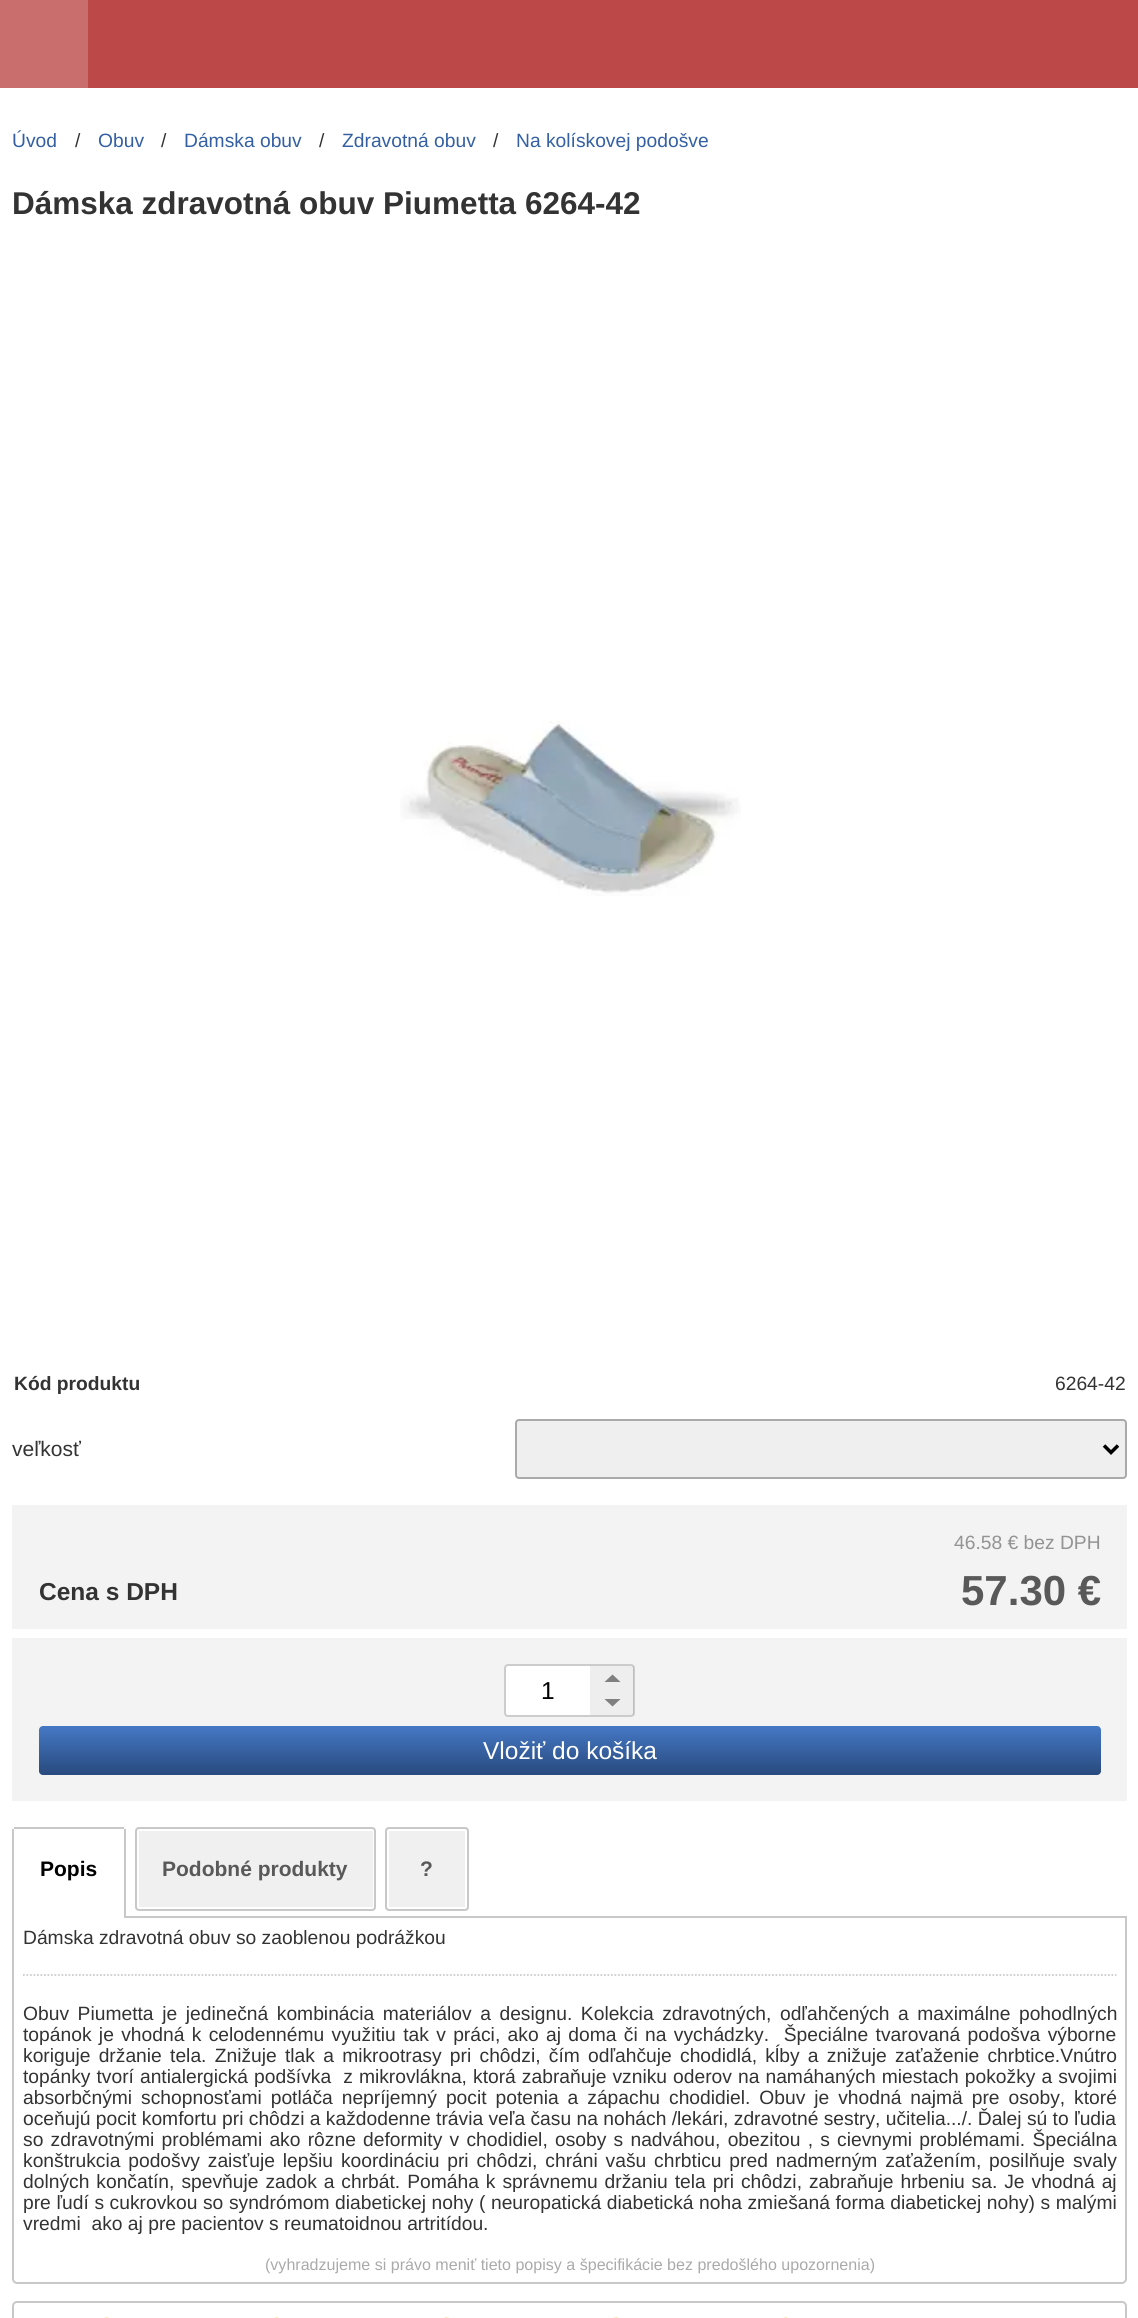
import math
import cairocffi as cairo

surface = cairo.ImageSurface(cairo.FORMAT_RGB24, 1138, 2318)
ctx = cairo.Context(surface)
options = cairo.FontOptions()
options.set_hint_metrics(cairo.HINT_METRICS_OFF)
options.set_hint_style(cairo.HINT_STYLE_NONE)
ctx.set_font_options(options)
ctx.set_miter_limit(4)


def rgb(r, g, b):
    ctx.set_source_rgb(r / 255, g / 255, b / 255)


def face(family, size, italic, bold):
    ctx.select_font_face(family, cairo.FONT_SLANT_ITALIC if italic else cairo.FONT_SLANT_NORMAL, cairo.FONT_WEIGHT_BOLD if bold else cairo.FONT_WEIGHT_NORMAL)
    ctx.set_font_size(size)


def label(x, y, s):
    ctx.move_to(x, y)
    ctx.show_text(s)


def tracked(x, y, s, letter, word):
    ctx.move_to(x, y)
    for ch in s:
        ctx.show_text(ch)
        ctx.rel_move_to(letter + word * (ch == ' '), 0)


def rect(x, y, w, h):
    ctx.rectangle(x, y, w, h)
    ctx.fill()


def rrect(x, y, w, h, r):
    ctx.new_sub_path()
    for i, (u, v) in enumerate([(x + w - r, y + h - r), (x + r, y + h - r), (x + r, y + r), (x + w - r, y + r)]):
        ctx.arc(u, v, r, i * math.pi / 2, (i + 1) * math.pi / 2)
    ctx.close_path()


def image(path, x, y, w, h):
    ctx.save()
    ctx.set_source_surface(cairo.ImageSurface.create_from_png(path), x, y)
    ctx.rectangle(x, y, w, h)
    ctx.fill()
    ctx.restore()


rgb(255, 255, 255)
ctx.paint()
rgb(189, 72, 72)
rect(88, 0, 1050, 88)
rgb(202, 109, 109)
rect(0, 0, 88, 88)
face('Liberation Sans', 19.25, 0, 0)
rgb(52, 96, 163)
label(12, 147, 'Úvod')
rgb(51, 51, 51)
label(75, 147, '/')
rgb(52, 96, 163)
label(98, 147, 'Obuv')
rgb(51, 51, 51)
label(161, 147, '/')
rgb(52, 96, 163)
label(184, 147, 'Dámska obuv')
rgb(51, 51, 51)
label(319, 147, '/')
rgb(52, 96, 163)
label(342, 147, 'Zdravotná obuv')
rgb(51, 51, 51)
label(493, 147, '/')
rgb(52, 96, 163)
label(516, 147, 'Na kolískovej podošve')
face('Liberation Sans', 31.5, 0, 1)
rgb(51, 51, 51)
label(12, 214, 'Dámska zdravotná obuv Piumetta 6264-42')
image('image0.png', 400, 720, 341, 176)
face('Liberation Sans', 19.25, 0, 1)
label(14, 1390, 'Kód produktu')
face('Liberation Sans', 19.25, 0, 0)
label(1055, 1390, '6264-42')
face('Liberation Sans', 21, 0, 0)
label(12, 1456, 'veľkosť')
rgb(239, 239, 239)
rrect(516, 1420, 610, 58, 3)
ctx.fill_preserve()
rgb(170, 170, 170)
ctx.stroke()
ctx.new_path()
ctx.move_to(1104, 1445.5)
ctx.line_to(1111, 1452.5)
ctx.line_to(1118, 1445.5)
rgb(0, 0, 0)
ctx.set_line_width(3.5)
ctx.stroke()
rgb(243, 243, 243)
rect(12, 1505, 1115, 124)
face('Liberation Sans', 19.25, 0, 0)
rgb(147, 147, 147)
label(954, 1549, '46.58 € bez DPH')
face('Liberation Sans', 24.5, 0, 1)
rgb(51, 51, 51)
label(39, 1600, 'Cena s DPH')
face('Liberation Sans', 42, 0, 1)
rgb(89, 89, 89)
label(961, 1605, '57.30 €')
rgb(243, 243, 243)
rect(12, 1638, 1115, 163)
rgb(255, 255, 255)
rrect(505, 1665, 129, 51, 3)
ctx.fill_preserve()
rgb(204, 204, 204)
ctx.set_line_width(2)
ctx.stroke()
face('Liberation Sans', 24.5, 0, 0)
rgb(0, 0, 0)
label(541, 1699, '1')
ctx.set_source_rgba(0, 0, 0, 0.07)
rect(590, 1666, 44, 25)
rgb(128, 128, 128)
ctx.new_path()
ctx.move_to(620.5, 1682)
ctx.line_to(612.5, 1674.5)
ctx.line_to(604.5, 1682)
ctx.close_path()
ctx.fill()
ctx.set_source_rgba(0, 0, 0, 0.07)
rect(590, 1691, 44, 24)
rgb(128, 128, 128)
ctx.new_path()
ctx.move_to(604.5, 1699)
ctx.line_to(612.5, 1706.5)
ctx.line_to(620.5, 1699)
ctx.close_path()
ctx.fill()
gradient = cairo.LinearGradient(570, 1726, 570, 1775)
gradient.add_color_stop_rgba(0, 0.271, 0.471, 0.773, 1)
gradient.add_color_stop_rgba(1, 0.157, 0.29, 0.49, 1)
ctx.set_source(gradient)
rrect(39, 1726, 1062, 49, 4)
ctx.fill()
rgb(255, 255, 255)
label(483, 1759, 'Vložiť do košíka')
ctx.new_path()
ctx.move_to(13, 1917)
ctx.line_to(1126, 1917)
ctx.line_to(1126, 2279)
ctx.curve_to(1126, 2281, 1124, 2283, 1122, 2283)
ctx.line_to(17, 2283)
ctx.curve_to(15, 2283, 13, 2281, 13, 2279)
ctx.close_path()
rgb(200, 200, 200)
ctx.stroke()
rgb(255, 255, 255)
ctx.new_path()
ctx.move_to(16, 1827)
ctx.line_to(122, 1827)
ctx.curve_to(124, 1827, 126, 1829, 126, 1831)
ctx.line_to(126, 1918)
ctx.line_to(12, 1918)
ctx.line_to(12, 1831)
ctx.curve_to(12, 1829, 14, 1827, 16, 1827)
ctx.close_path()
ctx.fill()
rgb(200, 200, 200)
rect(14, 1827, 110, 2)
rect(124, 1829, 2, 89)
rect(12, 1829, 2, 89)
face('Liberation Sans', 21, 0, 1)
rgb(0, 0, 0)
label(40, 1876, 'Popis')
rgb(240, 240, 240)
rrect(135, 1827, 241, 84, 4)
ctx.fill()
rrect(138, 1830, 236, 78, 1)
rgb(255, 255, 255)
ctx.stroke()
rrect(136, 1828, 239, 82, 3)
rgb(200, 200, 200)
ctx.stroke()
rgb(89, 89, 89)
label(162, 1876, 'Podobné produkty')
rgb(240, 240, 240)
rrect(385, 1827, 84, 84, 4)
ctx.fill()
rrect(388, 1830, 78, 78, 1)
rgb(255, 255, 255)
ctx.stroke()
rrect(386, 1828, 82, 82, 3)
rgb(200, 200, 200)
ctx.stroke()
rgb(89, 89, 89)
label(420, 1876, '?')
face('Liberation Sans', 19.25, 0, 0)
rgb(51, 51, 51)
label(23, 1944, 'Dámska zdravotná obuv so zaoblenou podrážkou')
ctx.new_path()
ctx.move_to(23, 1975)
ctx.line_to(1116.5, 1975)
rgb(204, 204, 204)
ctx.set_line_width(1.8)
ctx.set_dash([1.75, 1.75])
ctx.stroke()
rgb(51, 51, 51)
tracked(23, 2020, 'Obuv Piumetta je jedinečná kombinácia materiálov a designu. Kolekcia zdravotných, odľahčených a maximálne pohodlných', 0, 3.25)
tracked(23, 2041, 'topánok je vhodná k celodennému využitiu tak v práci, ako aj doma či na vychádzky.  Špeciálne tvarovaná podošva výborne', 0, 2)
tracked(23, 2062, 'koriguje držanie tela. Znižuje tlak a mikrootrasy pri chôdzi, čím odľahčuje chodidlá, kĺby a znižuje zaťaženie chrbtice.Vnútro', 0, 2.9)
tracked(23, 2083, 'topánky tvorí antialergická podšívka  z mikrovlákna, ktorá zabraňuje vzniku oderov na namáhaných miestach pokožky a svojimi', 0, 0.7)
tracked(23, 2104, 'absorbčnými schopnosťami potláča nepríjemný pocit potenia a zápachu chodidiel. Obuv je vhodná najmä pre osoby, ktoré', 0, 3.6)
label(23, 2125, 'oceňujú pocit komfortu pri chôdzi a každodenne trávia veľa času na nohách /lekári, zdravotné sestry, učitelia.../. Ďalej sú to ľudia')
tracked(23, 2146, 'so zdravotnými problémami ako rôzne deformity v chodidiel, osoby s nadváhou, obezitou , s cievnymi problémami. Špeciálna', 0, 1.9)
tracked(23, 2167, 'konštrukcia podošvy zaisťuje lepšiu koordináciu pri chôdzi, chráni vašu chrbticu pred nadmerným zaťažením, posilňuje svaly', 0, 2.5)
tracked(23, 2188, 'dolných končatín, spevňuje zadok a chrbát. Pomáha k správnemu držaniu tela pri chôdzi, zabraňuje hrbeniu sa. Je vhodná aj', 0, 1.6)
tracked(23, 2209, 'pre ľudí s cukrovkou so syndrómom diabetickej nohy ( neuropatická diabetická noha zmiešaná forma diabetickej nohy) s malými', 0, 0.25)
label(23, 2230, 'vredmi  ako aj pre pacientov s reumatoidnou artritídou.')
face('Liberation Sans', 16.05, 0, 0)
rgb(170, 170, 170)
label(265, 2270, '(vyhradzujeme si právo meniť tieto popisy a špecifikácie bez predošlého upozornenia)')
rrect(13, 2302, 1113, 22, 4)
rgb(200, 200, 200)
ctx.set_line_width(2)
ctx.set_dash([])
ctx.stroke()
image('image1.png', 104, 2317, 5, 1)
image('image2.png', 274, 2317, 5, 1)
image('image3.png', 444, 2317, 5, 1)
image('image4.png', 614, 2317, 5, 1)
image('image5.png', 783, 2317, 5, 1)
surface.write_to_png('render.png')
